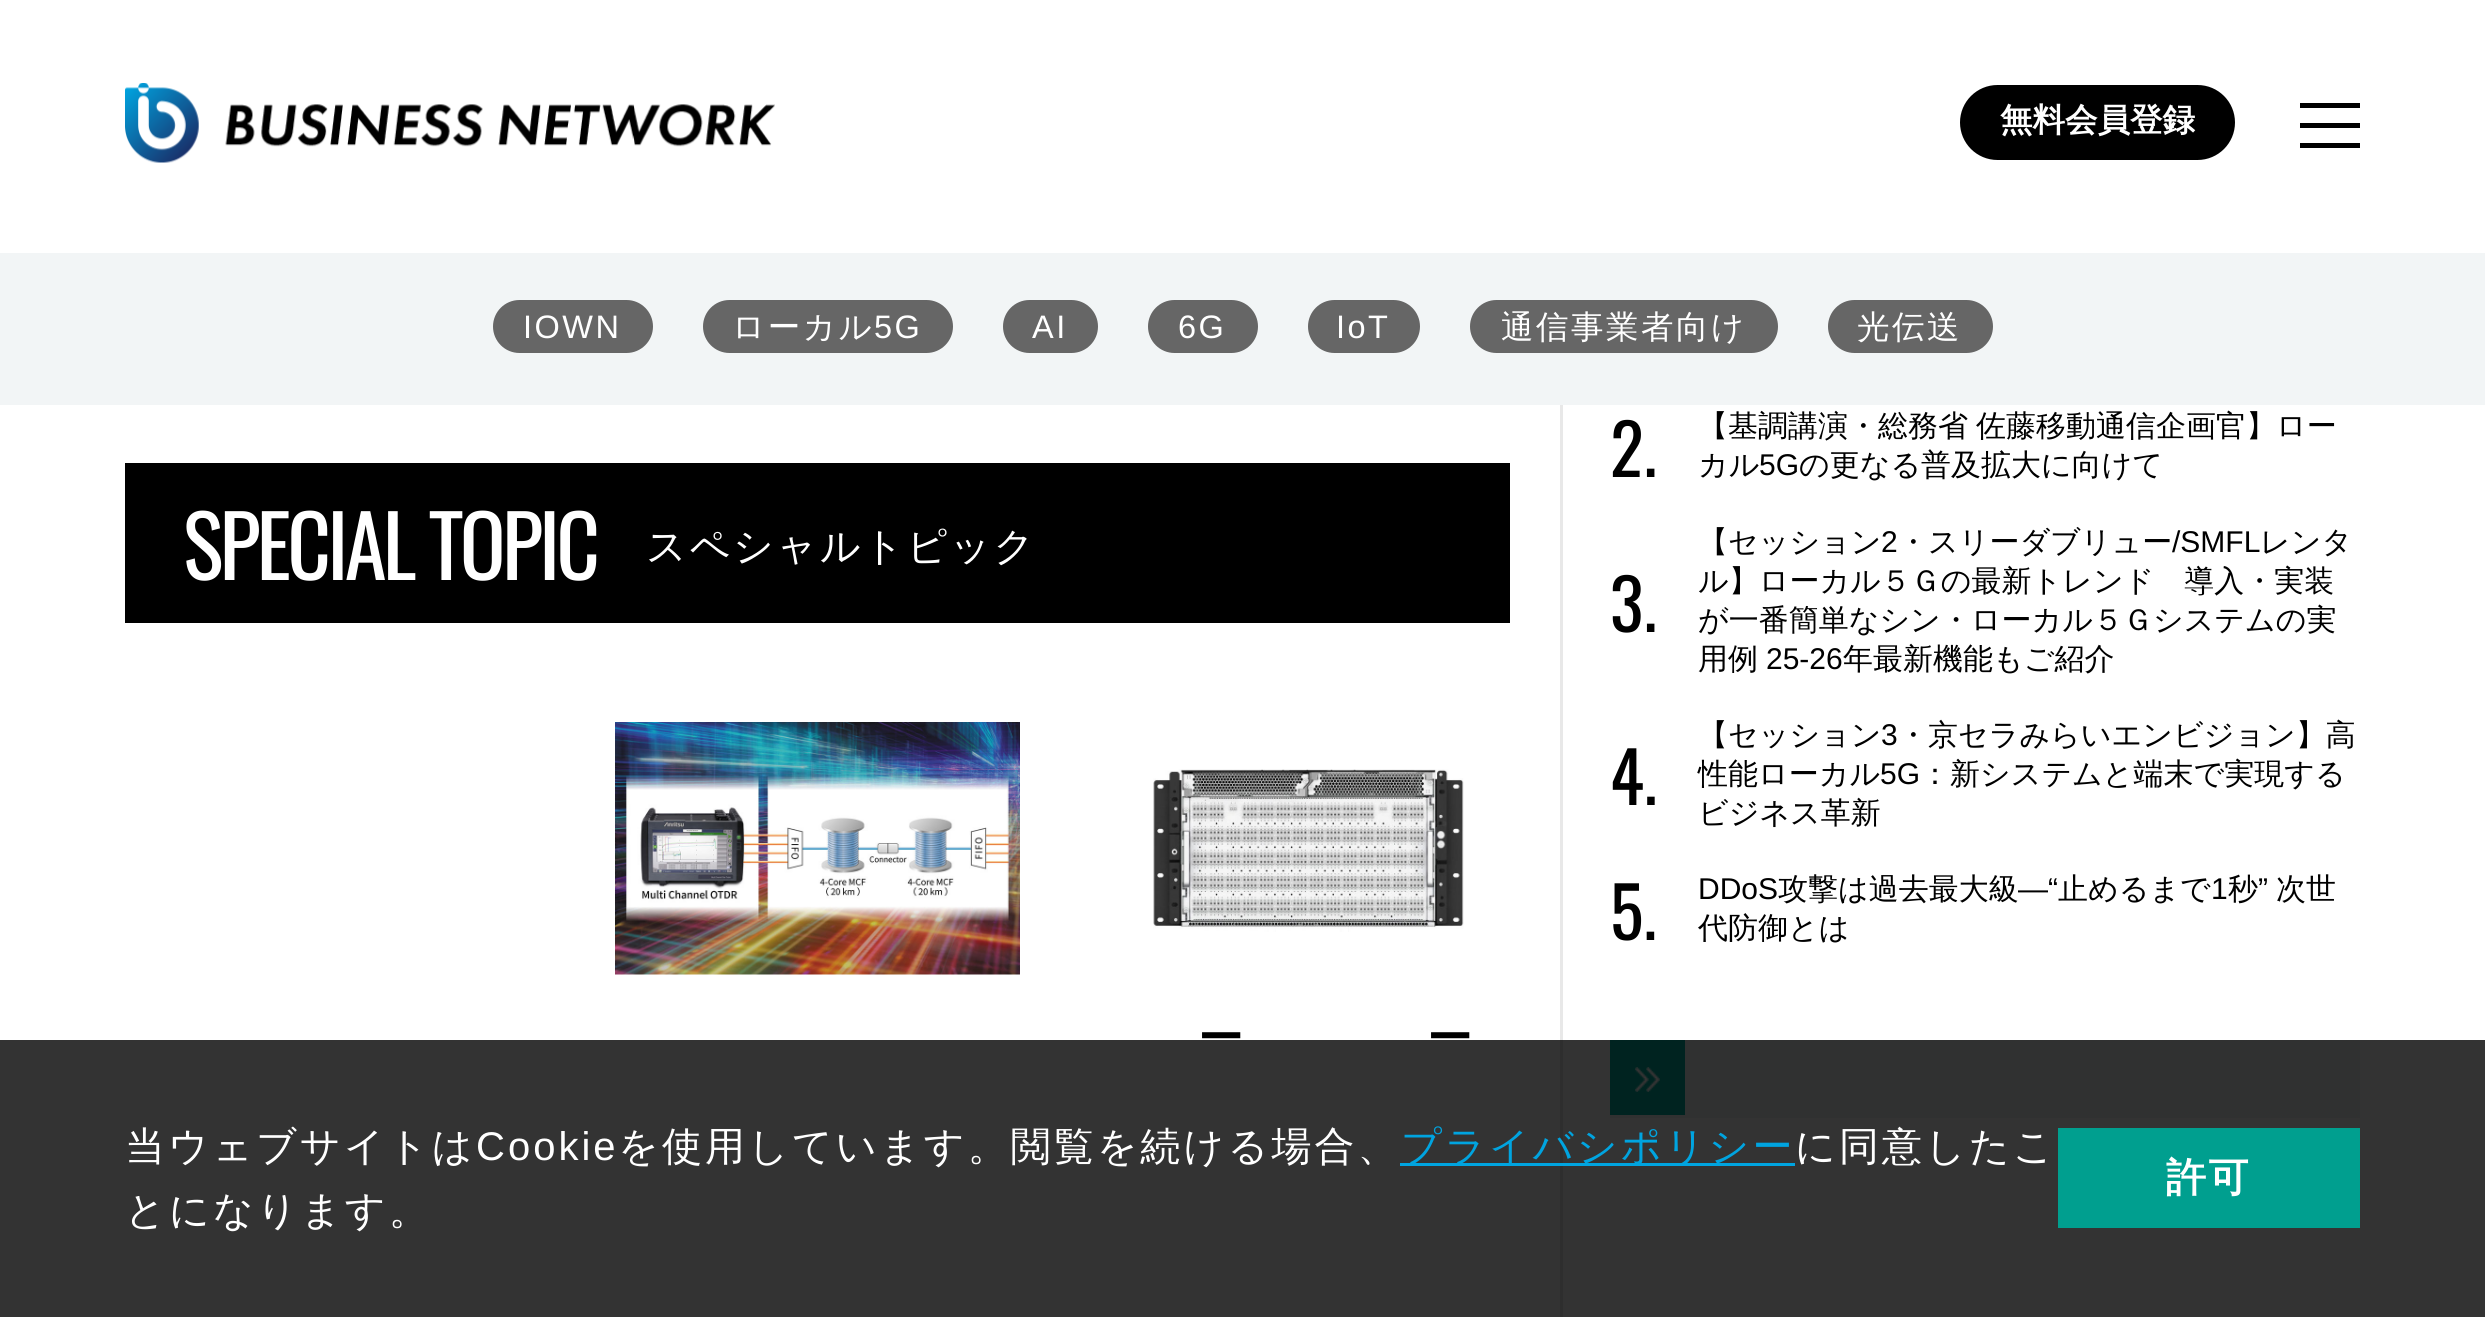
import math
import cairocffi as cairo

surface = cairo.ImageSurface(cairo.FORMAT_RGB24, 2485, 1317)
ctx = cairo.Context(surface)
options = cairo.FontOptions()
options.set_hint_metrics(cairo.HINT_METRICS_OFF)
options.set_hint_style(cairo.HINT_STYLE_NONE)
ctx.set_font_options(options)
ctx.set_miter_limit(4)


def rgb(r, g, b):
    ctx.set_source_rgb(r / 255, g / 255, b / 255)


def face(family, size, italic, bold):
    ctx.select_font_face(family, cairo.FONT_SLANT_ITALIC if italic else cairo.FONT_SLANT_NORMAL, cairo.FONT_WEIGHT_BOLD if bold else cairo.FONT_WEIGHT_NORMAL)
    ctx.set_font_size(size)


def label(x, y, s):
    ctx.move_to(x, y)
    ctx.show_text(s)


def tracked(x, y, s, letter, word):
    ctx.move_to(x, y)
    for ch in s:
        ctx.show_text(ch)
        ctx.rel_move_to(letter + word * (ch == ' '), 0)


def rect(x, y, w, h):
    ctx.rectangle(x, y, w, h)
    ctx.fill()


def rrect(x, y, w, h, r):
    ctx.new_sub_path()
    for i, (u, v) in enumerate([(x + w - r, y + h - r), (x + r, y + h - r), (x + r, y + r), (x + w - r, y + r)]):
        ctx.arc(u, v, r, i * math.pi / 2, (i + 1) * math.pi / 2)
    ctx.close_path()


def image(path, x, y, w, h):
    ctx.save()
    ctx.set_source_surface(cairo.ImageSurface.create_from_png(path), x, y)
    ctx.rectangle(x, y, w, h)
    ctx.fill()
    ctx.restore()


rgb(255, 255, 255)
ctx.paint()
image('image0.png', 125, 83, 650, 80)
rgb(0, 0, 0)
rrect(1961.5, 86.5, 272, 72, 36)
ctx.fill_preserve()
ctx.set_line_width(3)
ctx.stroke()
face('WenQuanYi Zen Hei', 32.5, 0, 1)
rgb(255, 255, 255)
label(2000, 131, '無料会員登録')
rgb(0, 0, 0)
rect(2300, 103, 60, 5)
rect(2300, 123, 60, 5)
rect(2300, 143, 60, 5)
rgb(242, 245, 246)
rect(0, 253, 2485, 152)
rgb(102, 102, 102)
rrect(493, 300, 160, 53, 26.5)
ctx.fill()
face('Liberation Sans', 32.5, 0, 0)
rgb(255, 255, 255)
tracked(523, 338, 'IOWN', 2.5, 0)
rgb(102, 102, 102)
rrect(703, 300, 250, 53, 26.5)
ctx.fill()
face('WenQuanYi Zen Hei Medium', 32.5, 0, 0)
rgb(255, 255, 255)
tracked(732, 338, 'ローカル', 2.5, 0)
face('Liberation Sans', 32.5, 0, 0)
tracked(874, 338, '5G', 2.5, 0)
rgb(102, 102, 102)
rrect(1003, 300, 95, 53, 26.5)
ctx.fill()
rgb(255, 255, 255)
tracked(1032, 338, 'AI', 2.5, 0)
rgb(102, 102, 102)
rrect(1148, 300, 110, 53, 26.5)
ctx.fill()
rgb(255, 255, 255)
tracked(1178, 338, '6G', 2.5, 0)
rgb(102, 102, 102)
rrect(1308, 300, 112, 53, 26.5)
ctx.fill()
rgb(255, 255, 255)
tracked(1336, 338, 'IoT', 2.5, 0)
rgb(102, 102, 102)
rrect(1470, 300, 308, 53, 26.5)
ctx.fill()
face('WenQuanYi Zen Hei Medium', 32.5, 0, 0)
rgb(255, 255, 255)
tracked(1501, 338, '通信事業者向け', 2.5, 0)
rgb(102, 102, 102)
rrect(1828, 300, 165, 53, 26.5)
ctx.fill()
rgb(255, 255, 255)
tracked(1857, 338, '光伝送', 2.5, 0)
rgb(0, 0, 0)
rect(125, 463, 1385, 160)
face('Oswald', 85, 0, 0)
rgb(255, 255, 255)
tracked(183, 580, 'SPECIAL TOPIC', -3.75, 0)
face('WenQuanYi Zen Hei Medium', 40, 0, 0)
tracked(646, 560, 'スペシャルトピック', 2.5, 0)
image('image1.png', 615, 722, 405, 253)
image('image2.png', 1153, 769, 311, 163)
face('WenQuanYi Zen Hei', 45, 0, 1)
rgb(0, 0, 0)
label(1198, 1053, 'ー')
label(1427, 1053, 'ー')
rgb(232, 232, 232)
rect(1560, 405, 3, 912)
face('Oswald', 70, 0, 0)
rgb(0, 0, 0)
label(1610, 477, '2.')
face('WenQuanYi Zen Hei Medium', 30, 0, 0)
tracked(1698, 436, '【基調講演・総務省 佐藤移動通信企画官】ロー', 0, -1)
label(1698, 475, 'カル')
face('Liberation Sans', 30, 0, 0)
label(1759, 475, '5G')
face('WenQuanYi Zen Hei Medium', 30, 0, 0)
label(1799, 475, 'の更なる普及拡大に向けて')
label(1698, 552, '【セッション')
face('Liberation Sans', 30, 0, 0)
label(1881, 552, '2')
face('WenQuanYi Zen Hei Medium', 30, 0, 0)
label(1898, 552, '・スリーダブリュー')
face('Liberation Sans', 30, 0, 0)
label(2172, 552, '/SMFL')
face('WenQuanYi Zen Hei Medium', 30, 0, 0)
label(2260, 552, 'レンタ')
face('Oswald', 70, 0, 0)
label(1610, 632, '3.')
face('WenQuanYi Zen Hei Medium', 30, 0, 0)
label(1698, 591, 'ル】ローカル５Ｇの最新トレンド　導入・実装')
label(1698, 630, 'が一番簡単なシン・ローカル５Ｇシステムの実')
label(1698, 669, '用例')
face('Liberation Sans', 30, 0, 0)
label(1766, 669, '25-26')
face('WenQuanYi Zen Hei Medium', 30, 0, 0)
label(1843, 669, '年最新機能もご紹介')
label(1698, 745, '【セッション')
face('Liberation Sans', 30, 0, 0)
label(1881, 745, '3')
face('WenQuanYi Zen Hei Medium', 30, 0, 0)
label(1898, 745, '・京セラみらいエンビジョン】高')
face('Oswald', 70, 0, 0)
label(1610, 805, '4.')
face('WenQuanYi Zen Hei Medium', 30, 0, 0)
label(1698, 784, '性能ローカル')
face('Liberation Sans', 30, 0, 0)
label(1880, 784, '5G')
face('WenQuanYi Zen Hei Medium', 30, 0, 0)
label(1920, 784, '：新システムと端末で実現する')
label(1698, 823, 'ビジネス革新')
face('Liberation Sans', 30, 0, 0)
label(1698, 899, 'DDoS')
face('WenQuanYi Zen Hei Medium', 30, 0, 0)
label(1778, 899, '攻撃は過去最大級')
face('Liberation Sans', 30, 0, 0)
label(2018, 899, '―“')
face('WenQuanYi Zen Hei Medium', 30, 0, 0)
label(2058, 899, '止めるまで')
face('Liberation Sans', 30, 0, 0)
label(2211, 899, '1')
face('WenQuanYi Zen Hei Medium', 30, 0, 0)
label(2228, 899, '秒')
face('Liberation Sans', 30, 0, 0)
label(2258, 899, '”')
face('WenQuanYi Zen Hei Medium', 30, 0, 0)
label(2276, 899, '次世')
face('Oswald', 70, 0, 0)
label(1610, 940, '5.')
face('WenQuanYi Zen Hei Medium', 30, 0, 0)
label(1698, 938, '代防御とは')
rgb(239, 243, 244)
rect(1610, 1040, 750, 78)
rgb(0, 177, 159)
rect(1610, 1040, 75, 75)
image('image3.png', 1635, 1067, 25, 25)
ctx.set_source_rgba(0, 0, 0, 0.8)
rect(0, 1040, 2485, 277)
face('WenQuanYi Zen Hei Medium', 40, 0, 0)
rgb(255, 255, 255)
tracked(125, 1160, '当ウェブサイトは', 3, 0)
face('Liberation Sans', 40, 0, 0)
tracked(476, 1160, 'Cookie', 3, 0)
face('WenQuanYi Zen Hei Medium', 40, 0, 0)
tracked(618, 1160, 'を使用しています。閲覧を続ける場合、', 3, 0)
rgb(0, 164, 224)
rect(1400, 1163, 395, 3)
tracked(1401, 1160, 'プライバシポリシー', 3, 0)
rgb(255, 255, 255)
tracked(1795, 1160, 'に同意したこ', 3, 0)
tracked(125, 1224, 'とになります。', 3, 0)
rgb(0, 159, 143)
rect(2058, 1128, 302, 100)
face('WenQuanYi Zen Hei', 40, 0, 1)
rgb(255, 255, 255)
tracked(2166, 1191, '許可', 2.5, 0)
surface.write_to_png('render.png')
